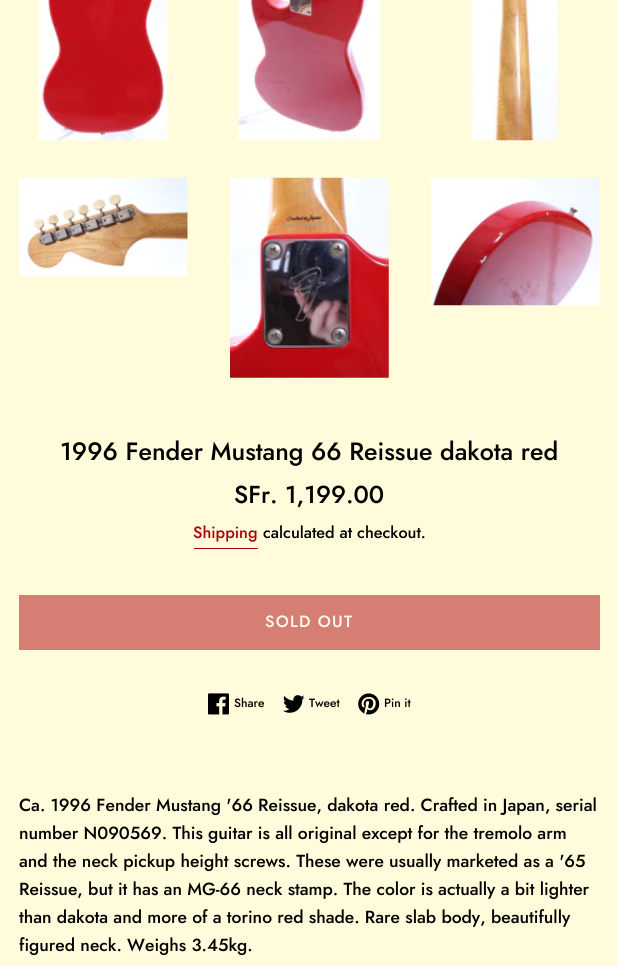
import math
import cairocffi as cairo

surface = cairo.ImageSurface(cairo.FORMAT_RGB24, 618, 966)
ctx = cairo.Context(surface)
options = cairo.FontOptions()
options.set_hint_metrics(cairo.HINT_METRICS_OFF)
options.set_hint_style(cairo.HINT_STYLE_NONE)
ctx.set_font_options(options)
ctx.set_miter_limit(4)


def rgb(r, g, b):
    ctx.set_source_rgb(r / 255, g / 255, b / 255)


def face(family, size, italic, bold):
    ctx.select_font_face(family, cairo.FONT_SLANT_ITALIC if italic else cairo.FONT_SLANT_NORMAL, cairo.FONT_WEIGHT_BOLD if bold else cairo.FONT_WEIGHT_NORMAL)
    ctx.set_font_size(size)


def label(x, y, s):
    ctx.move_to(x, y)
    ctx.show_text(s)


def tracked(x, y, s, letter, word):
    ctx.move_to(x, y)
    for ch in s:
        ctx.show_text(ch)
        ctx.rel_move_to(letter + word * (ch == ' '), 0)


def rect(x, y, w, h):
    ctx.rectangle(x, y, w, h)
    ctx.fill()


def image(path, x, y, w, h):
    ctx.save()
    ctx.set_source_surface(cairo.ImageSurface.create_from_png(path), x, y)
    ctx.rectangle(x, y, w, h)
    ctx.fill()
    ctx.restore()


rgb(255, 251, 219)
ctx.paint()
image('image0.png', 38, 0, 130, 141)
image('image1.png', 238, 0, 142, 141)
image('image2.png', 472, 0, 86, 141)
image('image3.png', 18, 177, 170, 100)
image('image4.png', 230, 177, 159, 201)
image('image5.png', 431, 177, 169, 129)
face('Jost Medium', 25, 0, 0)
rgb(0, 0, 0)
label(60, 460, '1996 Fender Mustang 66 Reissue dakota red')
face('Jost Medium', 24.5, 0, 0)
label(234, 503, 'SFr. 1,199.00')
face('Jost Medium', 16.25, 0, 0)
rgb(172, 0, 11)
label(193, 538, 'Shipping')
rect(194, 548, 64, 1)
rgb(0, 0, 0)
label(263, 538, 'calculated at checkout.')
rgb(214, 126, 115)
rect(19, 595, 581, 55)
rgb(255, 253, 237)
tracked(265, 627, 'SOLD OUT', 1.25, 0)
image('image6.png', 208, 693, 21, 22)
face('Jost Medium', 12, 0, 0)
rgb(0, 0, 0)
label(234, 707, 'Share')
image('image7.png', 283, 695, 22, 18)
label(309, 707, 'Tweet')
image('image8.png', 358, 693, 22, 22)
label(384, 707, 'Pin it')
face('Jost Medium', 17.5, 0, 0)
label(19, 811, 'Ca. 1996 Fender Mustang \'66 Reissue, dakota red. Crafted in Japan, serial')
label(19, 839, 'number N090569. This guitar is all original except for the tremolo arm')
label(19, 867, 'and the neck pickup height screws. These were usually marketed as a \'65')
label(19, 895, 'Reissue, but it has an MG-66 neck stamp. The color is actually a bit lighter')
label(19, 923, 'than dakota and more of a torino red shade. Rare slab body, beautifully')
label(19, 951, 'figured neck. Weighs 3.45kg.')
surface.write_to_png('render.png')
